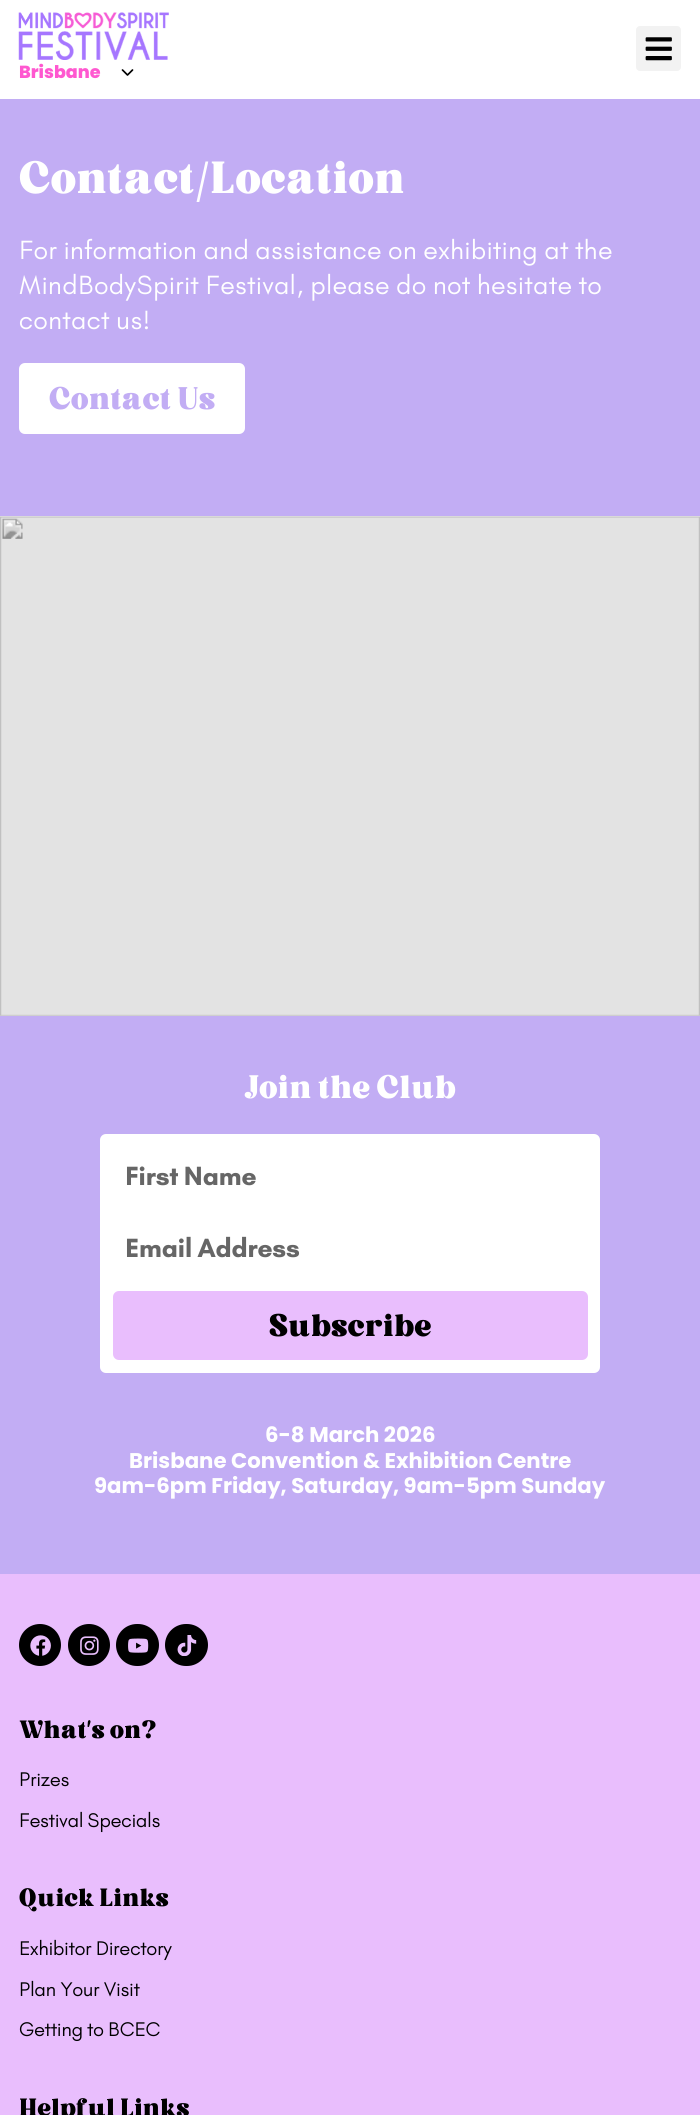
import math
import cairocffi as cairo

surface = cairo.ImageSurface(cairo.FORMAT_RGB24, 700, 2115)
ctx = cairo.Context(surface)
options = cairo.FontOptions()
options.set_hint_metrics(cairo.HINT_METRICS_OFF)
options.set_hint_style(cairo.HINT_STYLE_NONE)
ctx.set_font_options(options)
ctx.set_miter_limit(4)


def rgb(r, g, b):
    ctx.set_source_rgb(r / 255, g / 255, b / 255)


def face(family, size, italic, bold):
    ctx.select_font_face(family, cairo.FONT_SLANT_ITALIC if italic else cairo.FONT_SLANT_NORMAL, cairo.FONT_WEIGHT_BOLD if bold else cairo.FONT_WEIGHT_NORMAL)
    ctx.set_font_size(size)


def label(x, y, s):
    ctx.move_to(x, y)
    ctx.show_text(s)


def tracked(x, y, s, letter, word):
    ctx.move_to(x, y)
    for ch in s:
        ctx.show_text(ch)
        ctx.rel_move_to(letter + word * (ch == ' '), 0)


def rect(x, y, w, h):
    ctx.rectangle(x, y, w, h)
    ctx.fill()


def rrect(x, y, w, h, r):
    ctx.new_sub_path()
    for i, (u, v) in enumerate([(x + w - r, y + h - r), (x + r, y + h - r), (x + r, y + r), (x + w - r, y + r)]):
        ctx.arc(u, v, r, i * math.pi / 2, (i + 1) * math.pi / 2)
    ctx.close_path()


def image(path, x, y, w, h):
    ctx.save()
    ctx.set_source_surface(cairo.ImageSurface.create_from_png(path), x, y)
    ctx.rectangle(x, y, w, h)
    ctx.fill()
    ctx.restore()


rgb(255, 255, 255)
ctx.paint()
image('image0.png', 18, 12, 151, 48)
ctx.new_path()
ctx.move_to(122.5, 70)
ctx.line_to(127.5, 75)
ctx.line_to(132.5, 70)
rgb(0, 0, 0)
ctx.set_line_width(1.7)
ctx.set_line_cap(cairo.LINE_CAP_ROUND)
ctx.set_line_join(cairo.LINE_JOIN_ROUND)
ctx.stroke()
face('Poppins ExtraBold', 17.5, 0, 0)
rgb(255, 88, 208)
label(19, 78, 'Brisbane')
rgb(242, 242, 242)
rrect(636, 26, 45, 45, 4)
ctx.fill()
image('image1.png', 645, 37, 27, 24)
rgb(194, 173, 244)
rect(0, 99, 700, 417)
face('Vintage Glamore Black', 45, 0, 0)
rgb(255, 255, 255)
label(19, 193, 'Contact/Location')
face('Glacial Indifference', 25, 0, 0)
tracked(19, 259, 'For information and assistance on exhibiting at the', 0.62, 0)
tracked(19, 294, 'MindBodySpirit Festival, please do not hesitate to', 0.62, 0)
tracked(19, 329, 'contact us!', 0.62, 0)
rrect(19, 363, 226, 71, 6)
ctx.fill()
face('Vintage Glamore Black', 31.25, 0, 0)
rgb(194, 173, 244)
label(49, 409, 'Contact Us')
image('image2.png', 0, 516, 700, 500)
rect(0, 1016, 700, 558)
face('Vintage Glamore Black', 32.5, 0, 0)
rgb(255, 255, 255)
label(244, 1098, 'Join the Club')
rrect(100, 1134, 500, 239, 6)
ctx.fill()
face('Glacial Indifference', 25, 0, 1)
rgb(102, 102, 102)
label(125, 1185, 'First Name')
label(125, 1257, 'Email Address')
rgb(233, 190, 253)
rrect(113, 1291, 475, 69, 6)
ctx.fill()
face('Vintage Glamore Black', 31.25, 0, 0)
rgb(0, 0, 0)
label(269, 1336, 'Subscribe')
face('Poppins', 21.25, 0, 1)
rgb(255, 255, 255)
label(265, 1442, '6-8 March 2026')
label(129, 1468, 'Brisbane Convention & Exhibition Centre')
label(94, 1493, '9am-6pm Friday, Saturday, 9am-5pm Sunday')
rgb(233, 190, 253)
rect(0, 1574, 700, 541)
rgb(0, 0, 0)
ctx.new_path()
ctx.arc(40, 1645, 21, 0, 2 * math.pi)
ctx.fill()
image('image3.png', 30, 1635, 21, 21)
ctx.arc(89, 1645, 21, 0, 2 * math.pi)
ctx.fill()
image('image4.png', 80, 1636, 19, 19)
rrect(116, 1624, 43, 42, 21)
ctx.fill()
image('image5.png', 128, 1638, 21, 15)
rrect(165, 1624, 43, 42, 21)
ctx.fill()
image('image6.png', 177, 1635, 20, 21)
face('Vintage Glamore Black', 25, 0, 0)
label(19, 1738, 'What’s on?')
face('Glacial Indifference', 18.75, 0, 0)
label(19, 1786, 'Prizes')
label(19, 1827, 'Festival Specials')
face('Vintage Glamore Black', 25, 0, 0)
label(19, 1906, 'Quick Links')
face('Glacial Indifference', 18.75, 0, 0)
label(19, 1955, 'Exhibitor Directory')
label(19, 1996, 'Plan Your Visit')
label(19, 2036, 'Getting to BCEC')
face('Vintage Glamore Black', 25, 0, 0)
label(19, 2116, 'Helpful Links')
surface.write_to_png('render.png')
